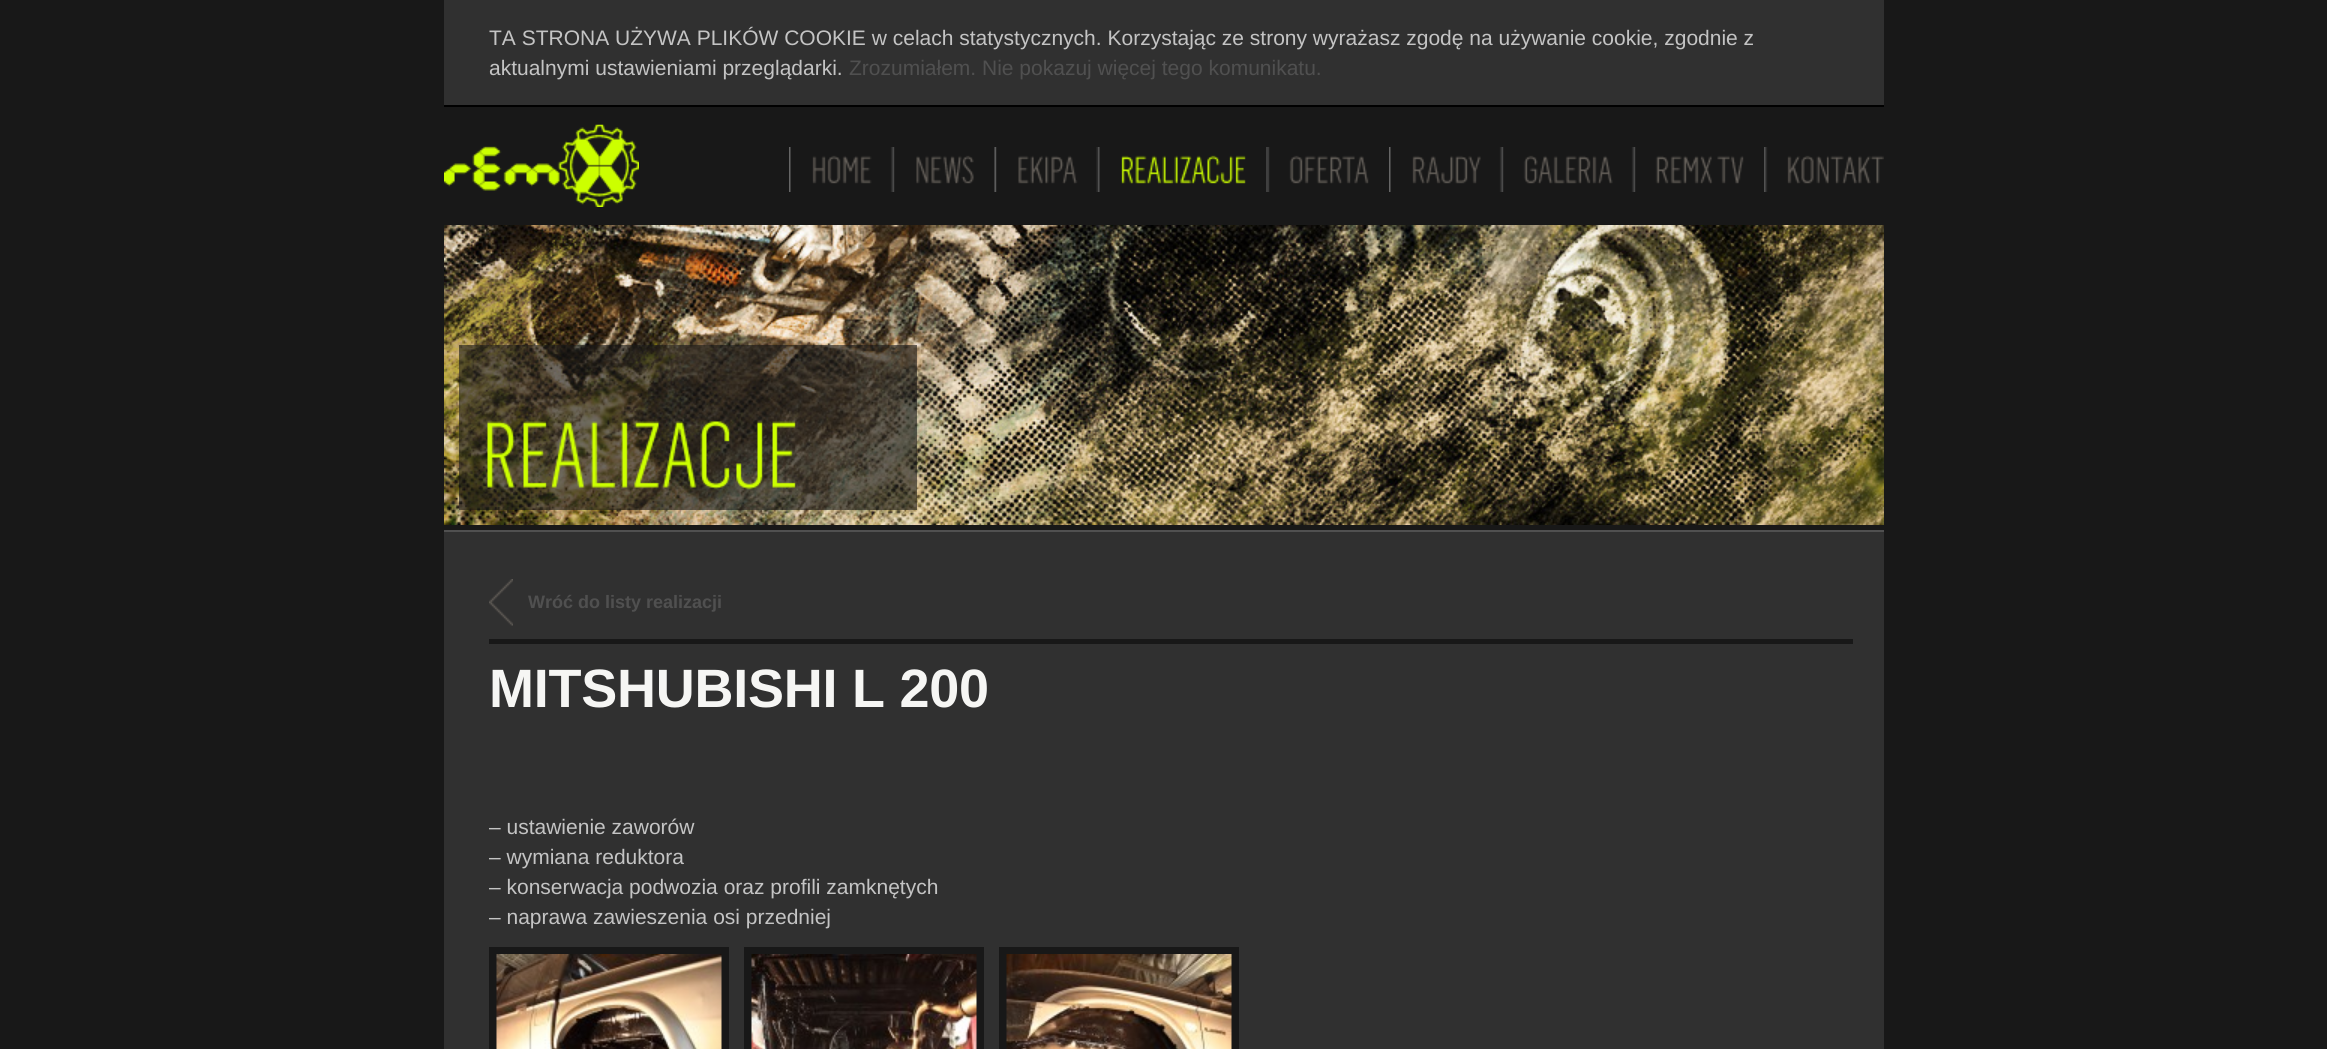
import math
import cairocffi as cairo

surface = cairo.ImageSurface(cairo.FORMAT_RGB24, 2327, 1049)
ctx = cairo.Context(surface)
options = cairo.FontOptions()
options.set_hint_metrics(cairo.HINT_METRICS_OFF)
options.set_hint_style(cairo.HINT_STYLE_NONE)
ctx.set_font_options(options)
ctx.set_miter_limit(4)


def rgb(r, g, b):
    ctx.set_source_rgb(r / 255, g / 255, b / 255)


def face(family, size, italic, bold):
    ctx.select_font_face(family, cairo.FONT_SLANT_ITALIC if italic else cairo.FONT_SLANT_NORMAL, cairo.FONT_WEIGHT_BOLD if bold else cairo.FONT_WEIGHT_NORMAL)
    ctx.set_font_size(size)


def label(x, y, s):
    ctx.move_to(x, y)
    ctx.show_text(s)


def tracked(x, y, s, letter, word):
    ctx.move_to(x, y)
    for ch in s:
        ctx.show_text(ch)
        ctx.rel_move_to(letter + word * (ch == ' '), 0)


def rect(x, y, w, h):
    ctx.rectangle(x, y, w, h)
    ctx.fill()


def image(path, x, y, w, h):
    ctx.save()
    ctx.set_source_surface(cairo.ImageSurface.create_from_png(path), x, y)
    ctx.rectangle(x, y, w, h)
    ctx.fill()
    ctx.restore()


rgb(24, 24, 24)
ctx.paint()
rgb(48, 48, 48)
rect(444, 0, 1440, 105)
rgb(0, 0, 0)
rect(444, 105, 1440, 2)
face('Liberation Sans', 21, 0, 0)
rgb(196, 196, 196)
label(489, 45, 'TA STRONA UŻYWA PLIKÓW COOKIE w celach statystycznych. Korzystając ze strony wyrażasz zgodę na używanie cookie, zgodnie z')
label(489, 75, 'aktualnymi ustawieniami przeglądarki.')
rgb(80, 80, 80)
label(849, 75, 'Zrozumiałem. Nie pokazuj więcej tego komunikatu.')
image('image0.png', 444, 124, 195, 83)
image('image1.png', 789, 147, 104, 45)
image('image2.png', 892, 147, 82, 45)
image('image3.png', 994, 147, 104, 45)
image('image4.png', 1098, 147, 148, 45)
image('image5.png', 1266, 147, 103, 45)
image('image6.png', 1389, 147, 113, 45)
image('image7.png', 1501, 147, 133, 45)
image('image8.png', 1633, 147, 111, 45)
image('image9.png', 1764, 147, 120, 45)
image('image10.png', 444, 225, 1440, 300)
ctx.set_source_rgba(0.094, 0.094, 0.094, 0.6)
rect(459, 345, 458, 165)
image('image11.png', 487, 421, 309, 69)
rgb(48, 48, 48)
rect(444, 532, 1440, 517)
rgb(80, 80, 80)
rect(444, 530, 1440, 2)
rgb(24, 24, 24)
rect(489, 639, 1364, 5)
image('image12.png', 489, 579, 24, 47)
face('Liberation Sans', 18, 0, 1)
rgb(80, 80, 80)
label(528, 608, 'Wróć do listy realizacji')
face('Liberation Sans', 54, 0, 1)
rgb(246, 246, 244)
tracked(489, 707, 'MITSHUBISHI L 200', -0.25, 0)
face('Liberation Sans', 21, 0, 0)
rgb(196, 196, 196)
label(489, 834, '– ustawienie zaworów')
label(489, 864, '– wymiana reduktora')
label(489, 894, '– konserwacja podwozia oraz profili zamknętych')
label(489, 924, '– naprawa zawieszenia osi przedniej')
ctx.rectangle(493, 951, 232, 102)
rgb(24, 24, 24)
ctx.set_line_width(8)
ctx.stroke()
image('image13.png', 496, 954, 226, 95)
ctx.rectangle(748, 951, 232, 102)
ctx.stroke()
image('image14.png', 751, 954, 226, 95)
ctx.rectangle(1003, 951, 232, 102)
ctx.stroke()
image('image15.png', 1006, 954, 226, 95)
surface.write_to_png('render.png')
